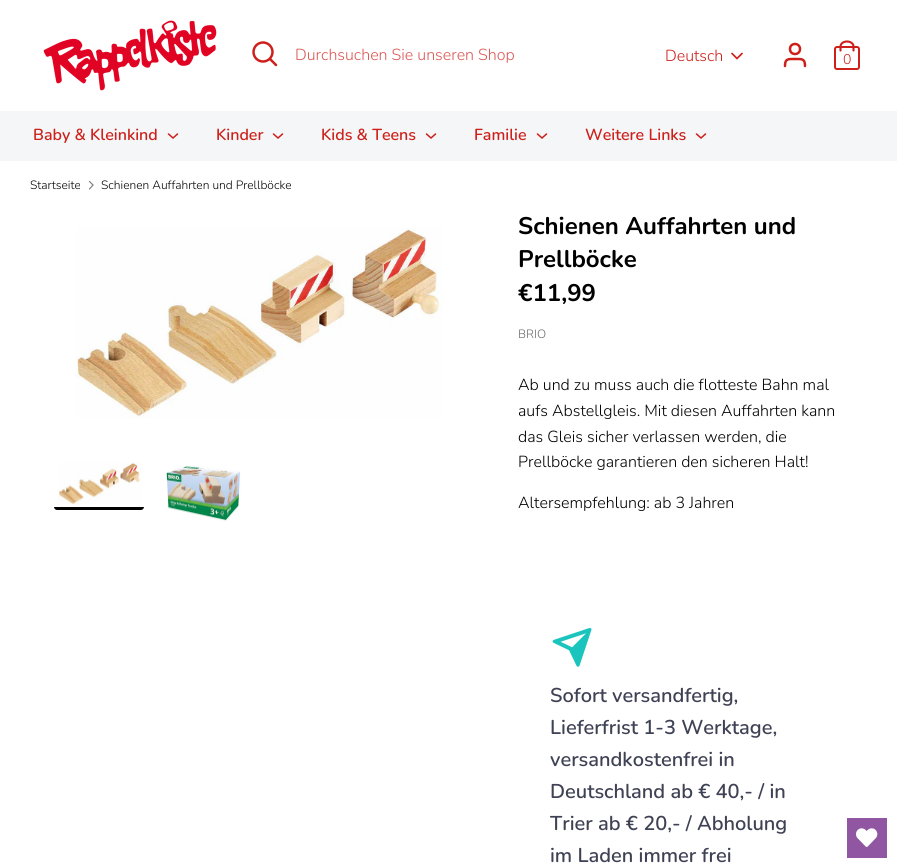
import math
import cairocffi as cairo

surface = cairo.ImageSurface(cairo.FORMAT_RGB24, 897, 868)
ctx = cairo.Context(surface)
options = cairo.FontOptions()
options.set_hint_metrics(cairo.HINT_METRICS_OFF)
options.set_hint_style(cairo.HINT_STYLE_NONE)
ctx.set_font_options(options)
ctx.set_miter_limit(4)


def rgb(r, g, b):
    ctx.set_source_rgb(r / 255, g / 255, b / 255)


def face(family, size, italic, bold):
    ctx.select_font_face(family, cairo.FONT_SLANT_ITALIC if italic else cairo.FONT_SLANT_NORMAL, cairo.FONT_WEIGHT_BOLD if bold else cairo.FONT_WEIGHT_NORMAL)
    ctx.set_font_size(size)


def label(x, y, s):
    ctx.move_to(x, y)
    ctx.show_text(s)


def rect(x, y, w, h):
    ctx.rectangle(x, y, w, h)
    ctx.fill()


def rrect(x, y, w, h, r):
    ctx.new_sub_path()
    for i, (u, v) in enumerate([(x + w - r, y + h - r), (x + r, y + h - r), (x + r, y + r), (x + w - r, y + r)]):
        ctx.arc(u, v, r, i * math.pi / 2, (i + 1) * math.pi / 2)
    ctx.close_path()


def image(path, x, y, w, h):
    ctx.save()
    ctx.set_source_surface(cairo.ImageSurface.create_from_png(path), x, y)
    ctx.rectangle(x, y, w, h)
    ctx.fill()
    ctx.restore()


rgb(255, 255, 255)
ctx.paint()
image('image0.png', 43, 20, 174, 71)
ctx.arc(263, 52, 9.5, 0, 2 * math.pi)
rgb(205, 32, 26)
ctx.set_line_width(2.5)
ctx.stroke()
ctx.new_path()
ctx.move_to(276, 65)
ctx.line_to(270, 59)
ctx.set_line_cap(cairo.LINE_CAP_ROUND)
ctx.stroke()
face('Nunito Light', 16, 0, 0)
rgb(218, 88, 83)
label(295, 60, 'Durchsuchen Sie unseren Shop')
rgb(205, 32, 26)
label(665, 61, 'Deutsch')
ctx.new_path()
ctx.move_to(732, 53.5)
ctx.line_to(737, 58.5)
ctx.line_to(742, 53.5)
ctx.set_line_width(1.7)
ctx.stroke()
ctx.new_path()
ctx.move_to(805, 66)
ctx.curve_to(805, 58.5, 802, 59, 795, 59)
ctx.curve_to(788, 59, 785, 58.5, 785, 66)
ctx.set_line_width(2.5)
ctx.stroke()
ctx.arc(795, 49, 5, 0, 2 * math.pi)
ctx.set_line_cap(cairo.LINE_CAP_BUTT)
ctx.stroke()
rrect(835, 47, 24, 22, 2)
ctx.set_line_width(2)
ctx.stroke()
ctx.new_path()
ctx.move_to(840.5, 50.5)
ctx.line_to(840.5, 46.5)
ctx.curve_to(840.5, 43.5, 843.5, 41.5, 847, 41.5)
ctx.curve_to(850.5, 41.5, 853.5, 43.5, 853.5, 46.5)
ctx.line_to(853.5, 50.5)
ctx.set_line_width(2.1)
ctx.set_line_cap(cairo.LINE_CAP_ROUND)
ctx.stroke()
face('Nunito Light', 14, 0, 0)
label(843, 64, '0')
rgb(244, 246, 248)
rect(0, 111, 897, 50)
face('Nunito SemiBold', 16, 0, 0)
rgb(205, 32, 26)
label(33, 140, 'Baby & Kleinkind')
ctx.new_path()
ctx.move_to(168.5, 134)
ctx.line_to(173, 138)
ctx.line_to(177.5, 134)
ctx.set_line_width(1.5)
ctx.stroke()
label(216, 140, 'Kinder')
ctx.new_path()
ctx.move_to(273.5, 134)
ctx.line_to(278, 138)
ctx.line_to(282.5, 134)
ctx.stroke()
label(321, 140, 'Kids & Teens')
ctx.new_path()
ctx.move_to(426.5, 134)
ctx.line_to(431, 138)
ctx.line_to(435.5, 134)
ctx.stroke()
label(474, 140, 'Familie')
ctx.new_path()
ctx.move_to(537.5, 134)
ctx.line_to(542, 138)
ctx.line_to(546.5, 134)
ctx.stroke()
label(585, 140, 'Weitere Links')
ctx.new_path()
ctx.move_to(696.5, 134)
ctx.line_to(701, 138)
ctx.line_to(705.5, 134)
ctx.stroke()
face('Nunito Light', 12, 0, 0)
rgb(0, 0, 0)
label(30, 189, 'Startseite')
ctx.new_path()
ctx.move_to(89.5, 189)
ctx.line_to(93, 185)
ctx.line_to(89.5, 181.5)
rgb(128, 128, 128)
ctx.set_line_width(1.2)
ctx.stroke()
rgb(0, 0, 0)
label(101, 189, 'Schienen Auffahrten und Prellböcke')
image('image1.png', 76, 228, 367, 191)
image('image2.png', 58, 462, 84, 43)
ctx.new_path()
ctx.move_to(54, 507)
ctx.line_to(144, 507)
ctx.curve_to(144, 508.5, 142.5, 510, 141, 510)
ctx.line_to(57, 510)
ctx.curve_to(55.5, 510, 54, 508.5, 54, 507)
ctx.close_path()
ctx.fill()
image('image3.png', 166, 465, 77, 57)
face('Nunito', 24, 0, 1)
label(518, 234, 'Schienen Auffahrten und')
label(518, 267, 'Prellböcke')
label(518, 301, '€11,99')
face('Nunito Light', 12, 0, 0)
rgb(102, 102, 102)
label(518, 338, 'BRIO')
face('Nunito Light', 16, 0, 0)
rgb(0, 0, 0)
label(518, 390, 'Ab und zu muss auch die flotteste Bahn mal')
label(518, 416, 'aufs Abstellgleis. Mit diesen Auffahrten kann')
label(518, 442, 'das Gleis sicher verlassen werden, die')
label(518, 467, 'Prellböcke garantieren den sicheren Halt!')
label(518, 508, 'Altersempfehlung: ab 3 Jahren')
image('image4.png', 552, 627, 40, 40)
face('Nunito SemiBold', 20, 0, 0)
rgb(63, 66, 84)
label(550, 702, 'Sofort versandfertig,')
label(550, 734, 'Lieferfrist 1-3 Werktage,')
label(550, 766, 'versandkostenfrei in')
label(550, 798, 'Deutschland ab € 40,- / in')
label(550, 830, 'Trier ab € 20,- / Abholung')
label(550, 862, 'im Laden immer frei')
rgb(144, 86, 162)
rect(847, 818, 40, 40)
image('image5.png', 856, 828, 22, 19)
surface.write_to_png('render.png')
